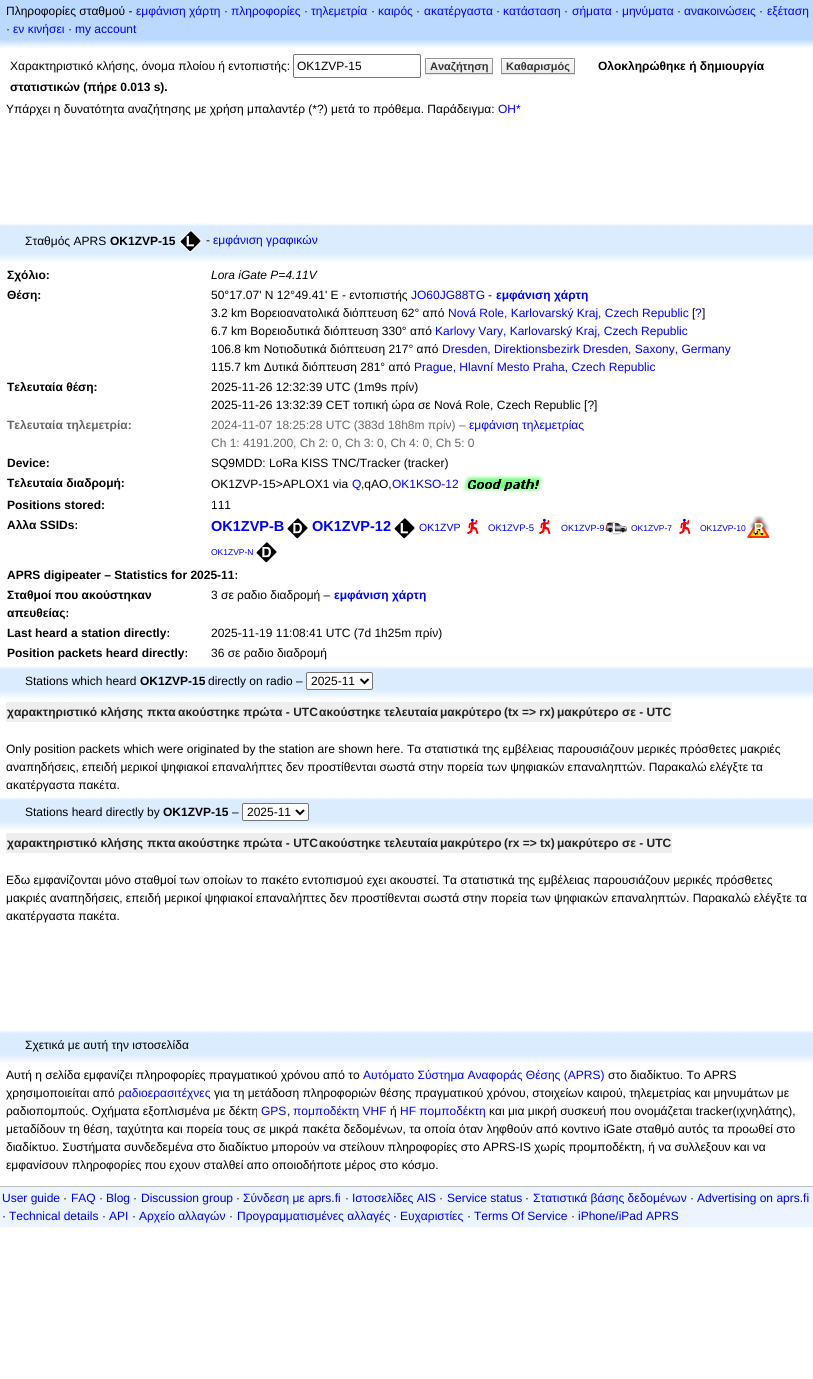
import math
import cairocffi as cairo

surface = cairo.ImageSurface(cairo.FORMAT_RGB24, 813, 1379)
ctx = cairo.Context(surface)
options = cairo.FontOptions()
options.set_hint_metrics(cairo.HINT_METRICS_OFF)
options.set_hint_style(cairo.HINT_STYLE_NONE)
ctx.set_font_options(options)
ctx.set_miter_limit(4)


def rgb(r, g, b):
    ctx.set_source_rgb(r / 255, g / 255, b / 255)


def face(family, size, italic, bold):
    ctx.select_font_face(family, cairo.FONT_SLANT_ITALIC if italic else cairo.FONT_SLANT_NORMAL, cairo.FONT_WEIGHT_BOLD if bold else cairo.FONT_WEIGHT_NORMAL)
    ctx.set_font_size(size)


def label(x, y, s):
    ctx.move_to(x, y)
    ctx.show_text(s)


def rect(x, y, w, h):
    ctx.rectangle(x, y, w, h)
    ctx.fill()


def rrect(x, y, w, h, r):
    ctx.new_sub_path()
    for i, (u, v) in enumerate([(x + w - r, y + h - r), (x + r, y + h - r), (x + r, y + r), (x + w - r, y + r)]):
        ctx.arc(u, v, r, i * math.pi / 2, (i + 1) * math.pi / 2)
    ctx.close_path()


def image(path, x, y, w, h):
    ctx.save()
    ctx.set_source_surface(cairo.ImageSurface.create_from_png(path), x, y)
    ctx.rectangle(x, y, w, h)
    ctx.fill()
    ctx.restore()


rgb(255, 255, 255)
ctx.paint()
rgb(187, 217, 255)
rect(0, 0, 813, 38)
face('Liberation Sans', 12, 0, 0)
rgb(0, 0, 0)
label(6, 15, 'Πληροφορίες σταθμού -')
rgb(0, 0, 255)
label(136, 15, 'εμφάνιση χάρτη')
rgb(0, 0, 0)
label(224, 15, '·')
rgb(0, 0, 255)
label(231, 15, 'πληροφορίες')
rgb(0, 0, 0)
label(304, 15, '·')
rgb(0, 0, 255)
label(311, 15, 'τηλεμετρία')
rgb(0, 0, 0)
label(371, 15, '·')
rgb(0, 0, 255)
label(378, 15, 'καιρός')
rgb(0, 0, 0)
label(416, 15, '·')
rgb(0, 0, 255)
label(424, 15, 'ακατέργαστα')
rgb(0, 0, 0)
label(496, 15, '·')
rgb(0, 0, 255)
label(503, 15, 'κατάσταση')
rgb(0, 0, 0)
label(564, 15, '·')
rgb(0, 0, 255)
label(572, 15, 'σήματα')
rgb(0, 0, 0)
label(615, 15, '·')
rgb(0, 0, 255)
label(622, 15, 'μηνύματα')
rgb(0, 0, 0)
label(677, 15, '·')
rgb(0, 0, 255)
label(684, 15, 'ανακοινώσεις')
rgb(0, 0, 0)
label(759, 15, '·')
rgb(0, 0, 255)
label(767, 15, 'εξέταση')
rgb(0, 0, 0)
label(6, 33, '·')
rgb(0, 0, 255)
label(13, 33, 'εν κινήσει')
rgb(0, 0, 0)
label(68, 33, '·')
rgb(0, 0, 255)
label(75, 33, 'my account')
image('image0.png', 0, 38, 813, 10)
rgb(0, 0, 0)
label(10, 70, 'Χαρακτηριστικό κλήσης, όνομα πλοίου ή εντοπιστής:')
rrect(293.5, 54.5, 127, 23, 1.5)
rgb(118, 118, 118)
ctx.set_line_width(1)
ctx.stroke()
rgb(0, 0, 0)
label(297, 70, 'OK1ZVP-15')
rgb(230, 230, 230)
rect(425, 74, 68, 1)
image('image1.png', 426, 59, 66, 14)
rgb(153, 153, 153)
rect(425, 58, 68, 1)
rect(492, 58, 1, 16)
rgb(136, 136, 136)
rect(425, 73, 68, 1)
rgb(153, 153, 153)
rect(425, 58, 1, 16)
face('Liberation Sans', 11, 0, 1)
rgb(51, 51, 51)
label(430, 70, 'Αναζήτηση')
rgb(230, 230, 230)
rect(501, 74, 74, 1)
image('image2.png', 502, 59, 72, 14)
rgb(153, 153, 153)
rect(501, 58, 74, 1)
rect(574, 58, 1, 16)
rgb(136, 136, 136)
rect(501, 73, 74, 1)
rgb(153, 153, 153)
rect(501, 58, 1, 16)
rgb(51, 51, 51)
label(506, 70, 'Καθαρισμός')
face('Liberation Sans', 12, 0, 1)
rgb(0, 0, 0)
label(598, 70, 'Ολοκληρώθηκε ή δημιουργία')
label(10, 91, 'στατιστικών (πήρε 0.013 s).')
face('Liberation Sans', 12, 0, 0)
label(6, 113, 'Υπάρχει η δυνατότητα αναζήτησης με χρήση μπαλαντέρ (*?) μετά το πρόθεμα. Παράδειγμα:')
rgb(0, 0, 255)
label(498, 113, 'OH*')
image('image3.png', 0, 223, 813, 4)
rgb(220, 236, 255)
rect(0, 227, 813, 26)
rgb(0, 0, 0)
label(25, 245, 'Σταθμός APRS')
face('Liberation Sans', 12, 0, 1)
label(110, 245, 'OK1ZVP-15')
image('image4.png', 179, 230, 23, 23)
face('Liberation Sans', 12, 0, 0)
label(206, 244, '-')
rgb(0, 0, 255)
label(213, 244, 'εμφάνιση γραφικών')
image('image5.png', 0, 253, 813, 9)
face('Liberation Sans', 12, 0, 1)
rgb(0, 0, 0)
label(7, 279, 'Σχόλιο:')
face('Liberation Sans', 12, 1, 0)
label(211, 279, 'Lora iGate P=4.11V')
face('Liberation Sans', 12, 0, 1)
label(7, 299, 'Θέση:')
face('Liberation Sans', 12, 0, 0)
label(211, 299, '50°17.07\' N 12°49.41\' E - εντοπιστής')
rgb(0, 0, 255)
label(411, 299, 'JO60JG88TG')
rgb(0, 0, 0)
label(488, 299, '-')
face('Liberation Sans', 12, 0, 1)
rgb(0, 0, 255)
label(496, 299, 'εμφάνιση χάρτη')
face('Liberation Sans', 12, 0, 0)
rgb(0, 0, 0)
label(211, 317, '3.2 km Βορειοανατολικά διόπτευση 62° από')
rgb(0, 0, 255)
label(448, 317, 'Nová Role, Karlovarský Kraj, Czech Republic')
rgb(0, 0, 0)
label(692, 317, '[')
rgb(0, 0, 255)
label(695, 317, '?')
rgb(0, 0, 0)
label(702, 317, ']')
label(211, 335, '6.7 km Βορειοδυτικά διόπτευση 330° από')
rgb(0, 0, 255)
label(435, 335, 'Karlovy Vary, Karlovarský Kraj, Czech Republic')
rgb(0, 0, 0)
label(211, 353, '106.8 km Νοτιοδυτικά διόπτευση 217° από')
rgb(0, 0, 255)
label(442, 353, 'Dresden, Direktionsbezirk Dresden, Saxony, Germany')
rgb(0, 0, 0)
label(211, 371, '115.7 km Δυτικά διόπτευση 281° από')
rgb(0, 0, 255)
label(414, 371, 'Prague, Hlavní Mesto Praha, Czech Republic')
face('Liberation Sans', 12, 0, 1)
rgb(0, 0, 0)
label(7, 391, 'Τελευταία θέση:')
face('Liberation Sans', 12, 0, 0)
label(211, 391, '2025-11-26 12:32:39 UTC (1m9s πρίν)')
label(211, 409, '2025-11-26 13:32:39 CET τοπική ώρα σε Nová Role, Czech Republic [?]')
face('Liberation Sans', 12, 0, 1)
rgb(102, 102, 102)
label(7, 429, 'Τελευταία τηλεμετρία:')
face('Liberation Sans', 12, 0, 0)
label(211, 429, '2024-11-07 18:25:28 UTC (383d 18h8m πρίν) –')
rgb(0, 0, 255)
label(469, 429, 'εμφάνιση τηλεμετρίας')
rgb(102, 102, 102)
label(211, 447, 'Ch 1: 4191.200, Ch 2: 0, Ch 3: 0, Ch 4: 0, Ch 5: 0')
face('Liberation Sans', 12, 0, 1)
rgb(0, 0, 0)
label(7, 467, 'Device:')
face('Liberation Sans', 12, 0, 0)
label(211, 467, 'SQ9MDD: LoRa KISS TNC/Tracker (tracker)')
face('Liberation Sans', 12, 0, 1)
label(7, 487, 'Τελευταία διαδρομή:')
face('Liberation Sans', 12, 0, 0)
label(211, 488, 'OK1ZVP-15>APLOX1 via')
rgb(0, 0, 255)
label(352, 488, 'Q')
rgb(0, 0, 0)
label(361, 488, ',qAO,')
rgb(0, 0, 255)
label(392, 488, 'OK1KSO-12')
image('image6.png', 462, 474, 81, 19)
face('Liberation Sans', 12, 0, 1)
rgb(0, 0, 0)
label(7, 509, 'Positions stored:')
face('Liberation Sans', 12, 0, 0)
label(211, 509, '111')
face('Liberation Sans', 12, 0, 1)
label(7, 529, 'Αλλα SSIDs:')
face('Liberation Sans', 14.5, 0, 1)
rgb(0, 0, 255)
label(211, 531, 'OK1ZVP-B')
image('image7.png', 287, 518, 21, 21)
label(312, 531, 'OK1ZVP-12')
image('image8.png', 394, 518, 21, 21)
face('Liberation Sans', 10.5, 0, 0)
label(419, 531, 'OK1ZVP')
image('image9.png', 467, 518, 12, 16)
face('Liberation Sans', 9.5, 0, 0)
label(488, 531, 'OK1ZVP-5')
image('image9.png', 539, 518, 12, 16)
face('Liberation Sans', 9, 0, 0)
label(561, 531, 'OK1ZVP-9')
image('image10.png', 605, 521, 22, 14)
face('Liberation Sans', 8.5, 0, 0)
label(631, 531, 'OK1ZVP-7')
image('image9.png', 679, 518, 12, 16)
label(700, 531, 'OK1ZVP-10')
image('image11.png', 747, 516, 23, 22)
label(211, 555, 'OK1ZVP-N')
image('image7.png', 256, 542, 21, 21)
face('Liberation Sans', 12, 0, 1)
rgb(0, 0, 0)
label(7, 579, 'APRS digipeater – Statistics for 2025-11:')
label(7, 599, 'Σταθμοί που ακούστηκαν')
label(7, 617, 'απευθείας:')
face('Liberation Sans', 12, 0, 0)
label(211, 599, '3 σε ραδιο διαδρομή –')
face('Liberation Sans', 12, 0, 1)
rgb(0, 0, 255)
label(334, 599, 'εμφάνιση χάρτη')
rgb(0, 0, 0)
label(7, 637, 'Last heard a station directly:')
face('Liberation Sans', 12, 0, 0)
label(211, 637, '2025-11-19 11:08:41 UTC (7d 1h25m πρίν)')
face('Liberation Sans', 12, 0, 1)
label(7, 657, 'Position packets heard directly:')
face('Liberation Sans', 12, 0, 0)
label(211, 657, '36 σε ραδιο διαδρομή')
image('image3.png', 0, 666, 813, 4)
rgb(220, 236, 255)
rect(0, 670, 813, 20)
rgb(0, 0, 0)
label(25, 685, 'Stations which heard')
face('Liberation Sans', 12, 0, 1)
label(140, 685, 'OK1ZVP-15')
face('Liberation Sans', 12, 0, 0)
label(208, 685, 'directly on radio –')
rgb(255, 255, 255)
rrect(306.5, 672.5, 66, 17, 1.5)
ctx.fill_preserve()
rgb(118, 118, 118)
ctx.stroke()
ctx.new_path()
ctx.move_to(360.5, 679)
ctx.line_to(364.5, 683)
ctx.line_to(368.5, 679)
rgb(0, 0, 0)
ctx.set_line_width(2)
ctx.stroke()
label(311, 685, '2025-11')
image('image5.png', 0, 690, 813, 9)
rgb(238, 238, 238)
rect(6, 702, 666, 20)
face('Liberation Sans', 12, 0, 1)
rgb(34, 34, 34)
label(7, 716, 'χαρακτηριστικό κλήσης')
label(147, 716, 'πκτα')
label(178, 716, 'ακούστηκε πρώτα - UTC')
label(319, 716, 'ακούστηκε τελευταία')
label(440, 716, 'μακρύτερο')
label(504, 716, '(tx => rx)')
label(557, 716, 'μακρύτερο σε - UTC')
face('Liberation Sans', 12, 0, 0)
rgb(0, 0, 0)
label(6, 753, 'Only position packets which were originated by the station are shown here. Τα στατιστικά της εμβέλειας παρουσιάζουν μερικές πρόσθετες μακριές')
label(6, 771, 'αναπηδήσεις, επειδή μερικοί ψηφιακοί επαναλήπτες δεν προστίθενται σωστά στην πορεία των ψηφιακών επαναληπτών. Παρακαλώ ελέγξτε τα')
label(6, 789, 'ακατέργαστα πακέτα.')
image('image3.png', 0, 797, 813, 4)
rgb(220, 236, 255)
rect(0, 801, 813, 20)
rgb(0, 0, 0)
label(25, 816, 'Stations heard directly by')
face('Liberation Sans', 12, 0, 1)
label(163, 816, 'OK1ZVP-15')
face('Liberation Sans', 12, 0, 0)
label(232, 816, '–')
rgb(255, 255, 255)
rrect(242.5, 803.5, 66, 17, 1.5)
ctx.fill_preserve()
rgb(118, 118, 118)
ctx.set_line_width(1)
ctx.stroke()
ctx.new_path()
ctx.move_to(296, 810)
ctx.line_to(300, 814)
ctx.line_to(304, 810)
rgb(0, 0, 0)
ctx.set_line_width(2)
ctx.stroke()
label(247, 816, '2025-11')
image('image5.png', 0, 821, 813, 9)
rgb(238, 238, 238)
rect(6, 833, 666, 20)
face('Liberation Sans', 12, 0, 1)
rgb(34, 34, 34)
label(7, 847, 'χαρακτηριστικό κλήσης')
label(147, 847, 'πκτα')
label(178, 847, 'ακούστηκε πρώτα - UTC')
label(319, 847, 'ακούστηκε τελευταία')
label(440, 847, 'μακρύτερο')
label(504, 847, '(rx => tx)')
label(557, 847, 'μακρύτερο σε - UTC')
face('Liberation Sans', 12, 0, 0)
rgb(0, 0, 0)
label(6, 884, 'Εδω εμφανίζονται μόνο σταθμοί των οποίων το πακέτο εντοπισμού εχει ακουστεί. Τα στατιστικά της εμβέλειας παρουσιάζουν μερικές πρόσθετες')
label(6, 902, 'μακριές αναπηδήσεις, επειδή μερικοί ψηφιακοί επαναλήπτες δεν προστίθενται σωστά στην πορεία των ψηφιακών επαναληπτών. Παρακαλώ ελέγξτε τα')
label(6, 920, 'ακατέργαστα πακέτα.')
image('image3.png', 0, 1030, 813, 4)
rgb(220, 236, 255)
rect(0, 1034, 813, 20)
rgb(0, 0, 0)
label(25, 1049, 'Σχετικά με αυτή την ιστοσελίδα')
image('image5.png', 0, 1054, 813, 9)
label(6, 1079, 'Αυτή η σελίδα εμφανίζει πληροφορίες πραγματικού χρόνου από το')
rgb(0, 0, 255)
label(363, 1079, 'Αυτόματο Σύστημα Αναφοράς Θέσης (APRS)')
rgb(0, 0, 0)
label(608, 1079, 'στο διαδίκτυο. Το APRS')
label(6, 1097, 'χρησιμοποιείται από')
rgb(0, 0, 255)
label(118, 1097, 'ραδιοερασιτέχνες')
rgb(0, 0, 0)
label(214, 1097, 'για τη μετάδοση πληροφοριών θέσης πραγματικού χρόνου, στοιχείων καιρού, τηλεμετρίας και μηνυμάτων με')
label(6, 1115, 'ραδιοπομπούς. Οχήματα εξοπλισμένα με δέκτη')
rgb(0, 0, 255)
label(261, 1115, 'GPS')
rgb(0, 0, 0)
label(287, 1115, ',')
rgb(0, 0, 255)
label(293, 1115, 'πομποδέκτη VHF')
rgb(0, 0, 0)
label(390, 1115, 'ή')
rgb(0, 0, 255)
label(400, 1115, 'HF πομποδέκτη')
rgb(0, 0, 0)
label(489, 1115, 'και μια μικρή συσκευή που ονομάζεται tracker(ιχνηλάτης),')
label(6, 1133, 'μεταδίδουν τη θέση, ταχύτητα και πορεία τους σε μικρά πακέτα δεδομένων, τα οποία όταν ληφθούν από κοντινο iGate σταθμό αυτός τα προωθεί στο')
label(6, 1151, 'διαδίκτυο. Συστήματα συνδεδεμένα στο διαδίκτυο μπορούν να στείλουν πληροφορίες στο APRS-IS χωρίς προμποδέκτη, ή να συλλεξουν και να')
label(6, 1169, 'εμφανίσουν πληροφορίες που εχουν σταλθεί απο οποιοδήποτε μέρος στο κόσμο.')
rgb(235, 244, 255)
rect(0, 1187, 813, 40)
rgb(189, 189, 189)
rect(0, 1186, 813, 1)
rgb(0, 0, 255)
label(2, 1202, 'User guide')
rgb(0, 0, 0)
label(63, 1202, '·')
rgb(0, 0, 255)
label(71, 1202, 'FAQ')
rgb(0, 0, 0)
label(99, 1202, '·')
rgb(0, 0, 255)
label(106, 1202, 'Blog')
rgb(0, 0, 0)
label(133, 1202, '·')
rgb(0, 0, 255)
label(141, 1202, 'Discussion group')
rgb(0, 0, 0)
label(236, 1202, '·')
rgb(0, 0, 255)
label(243, 1202, 'Σύνδεση με aprs.fi')
rgb(0, 0, 0)
label(345, 1202, '·')
rgb(0, 0, 255)
label(352, 1202, 'Ιστοσελίδες AIS')
rgb(0, 0, 0)
label(439, 1202, '·')
rgb(0, 0, 255)
label(447, 1202, 'Service status')
rgb(0, 0, 0)
label(525, 1202, '·')
rgb(0, 0, 255)
label(533, 1202, 'Στατιστικά βάσης δεδομένων')
rgb(0, 0, 0)
label(690, 1202, '·')
rgb(0, 0, 255)
label(697, 1202, 'Advertising on aprs.fi')
rgb(0, 0, 0)
label(2, 1220, '·')
rgb(0, 0, 255)
label(9, 1220, 'Technical details')
rgb(0, 0, 0)
label(102, 1220, '·')
rgb(0, 0, 255)
label(109, 1220, 'API')
rgb(0, 0, 0)
label(132, 1220, '·')
rgb(0, 0, 255)
label(139, 1220, 'Αρχείο αλλαγών')
rgb(0, 0, 0)
label(229, 1220, '·')
rgb(0, 0, 255)
label(237, 1220, 'Προγραμματισμένες αλλαγές')
rgb(0, 0, 0)
label(393, 1220, '·')
rgb(0, 0, 255)
label(400, 1220, 'Ευχαριστίες')
rgb(0, 0, 0)
label(467, 1220, '·')
rgb(0, 0, 255)
label(474, 1220, 'Terms Of Service')
rgb(0, 0, 0)
label(571, 1220, '·')
rgb(0, 0, 255)
label(578, 1220, 'iPhone/iPad APRS')
surface.write_to_png('render.png')
